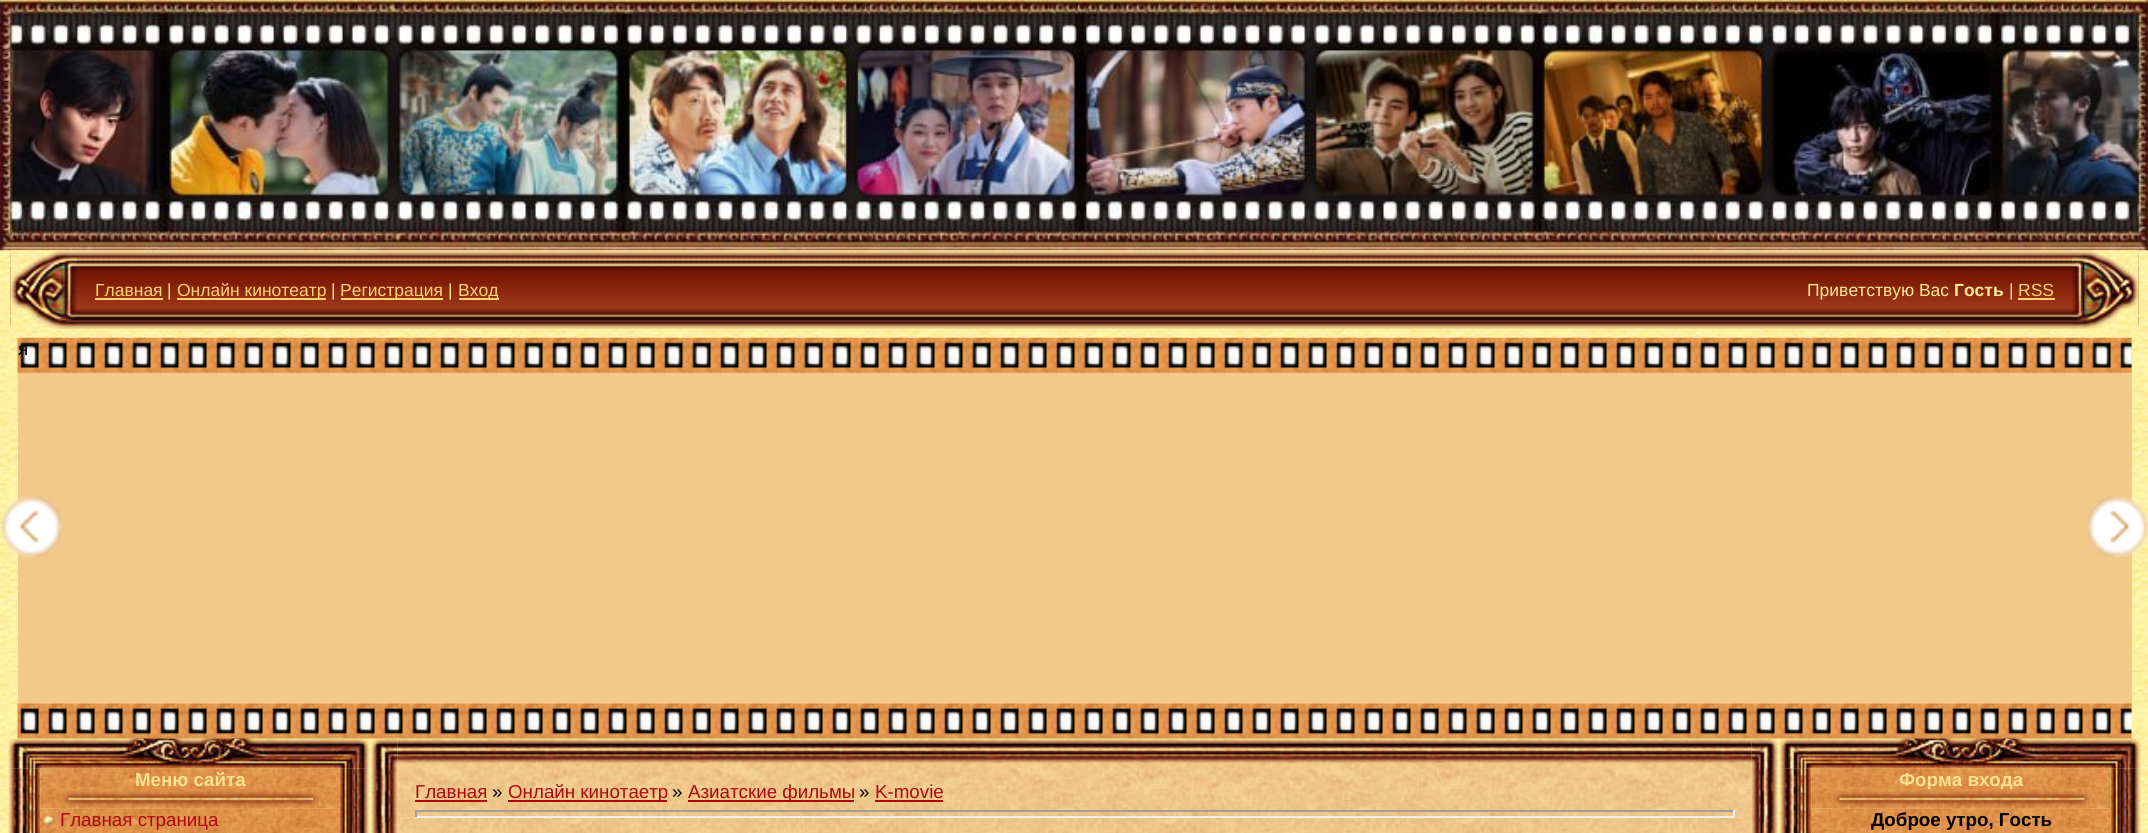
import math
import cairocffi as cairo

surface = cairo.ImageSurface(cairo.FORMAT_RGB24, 2148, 833)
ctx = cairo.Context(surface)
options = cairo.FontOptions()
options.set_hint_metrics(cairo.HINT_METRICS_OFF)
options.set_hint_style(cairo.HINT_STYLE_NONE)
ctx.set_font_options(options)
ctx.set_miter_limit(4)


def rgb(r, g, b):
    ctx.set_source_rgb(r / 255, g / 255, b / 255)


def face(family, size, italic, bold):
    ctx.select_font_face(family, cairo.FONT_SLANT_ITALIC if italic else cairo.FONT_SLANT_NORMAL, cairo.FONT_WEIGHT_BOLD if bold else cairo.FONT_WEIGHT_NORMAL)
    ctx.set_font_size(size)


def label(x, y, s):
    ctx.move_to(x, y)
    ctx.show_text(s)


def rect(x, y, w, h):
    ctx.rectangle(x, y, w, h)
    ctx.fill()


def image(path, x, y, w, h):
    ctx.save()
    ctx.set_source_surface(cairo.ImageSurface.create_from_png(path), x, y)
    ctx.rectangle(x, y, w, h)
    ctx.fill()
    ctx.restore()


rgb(255, 255, 255)
ctx.paint()
image('image0.png', 0, 250, 2148, 583)
image('image2.png', 10, 250, 2129, 79)
image('image1.png', 0, 0, 2148, 251)
image('image3.png', 10, 250, 67, 79)
face('Liberation Sans', 17.5, 0, 0)
rgb(254, 211, 111)
label(95, 296, 'Главная')
rect(95, 298, 68, 2)
rgb(255, 233, 145)
label(167, 296, '|')
rgb(254, 211, 111)
rect(177, 298, 149, 2)
label(177, 296, 'Онлайн кинотеатр')
rgb(255, 233, 145)
label(331, 296, '|')
rgb(254, 211, 111)
rect(341, 298, 102, 2)
label(340, 296, 'Регистрация')
rgb(255, 233, 145)
label(448, 296, '|')
rgb(254, 211, 111)
rect(459, 298, 40, 2)
label(458, 296, 'Вход')
rgb(255, 233, 145)
label(1807, 296, 'Приветствую Вас')
face('Liberation Sans', 17.5, 0, 1)
label(1954, 296, 'Гость')
face('Liberation Sans', 17.5, 0, 0)
label(2009, 296, '|')
rgb(254, 211, 111)
label(2018, 296, 'RSS')
rect(2018, 298, 37, 2)
image('image4.png', 2072, 250, 67, 79)
rgb(242, 201, 137)
rect(18, 338, 2114, 376)
image('image5.png', 17, 337, 2115, 36)
face('Liberation Sans', 18.75, 0, 0)
rgb(0, 0, 0)
label(18, 355, 'я')
image('image6.png', 1, 496, 61, 61)
image('image7.png', 2087, 496, 61, 61)
image('image10.png', 8, 768, 33, 65)
image('image11.png', 40, 768, 300, 41)
image('image13.png', 339, 768, 31, 65)
image('image19.png', 369, 763, 29, 70)
image('image9.png', 8, 731, 362, 38)
image('image17.png', 397, 738, 1355, 25)
image('image16.png', 369, 738, 29, 25)
image('image18.png', 1751, 738, 29, 25)
image('image20.png', 397, 763, 1355, 70)
image('image21.png', 1751, 763, 29, 70)
image('image23.png', 1779, 768, 33, 65)
image('image24.png', 1811, 768, 300, 41)
image('image26.png', 2110, 768, 31, 65)
image('image22.png', 1779, 731, 362, 38)
image('image8.png', 17, 703, 2115, 36)
face('Liberation Sans', 18.75, 0, 1)
rgb(250, 226, 145)
label(135, 786, 'Меню сайта')
rgb(227, 148, 79)
rect(40, 809, 300, 24)
image('image14.png', 40, 808, 300, 25)
image('image12.png', 61, 789, 258, 20)
image('image15.png', 43, 815, 10, 11)
face('Liberation Sans', 18.75, 0, 0)
rgb(173, 9, 14)
label(60, 826, 'Главная страница')
label(415, 798, 'Главная')
rect(415, 800, 72, 2)
rgb(0, 0, 0)
label(492, 798, '»')
rgb(173, 9, 14)
rect(508, 800, 159, 2)
label(508, 798, 'Онлайн кинотаетр')
rgb(0, 0, 0)
label(672, 798, '»')
rgb(173, 9, 14)
rect(688, 800, 166, 2)
label(688, 798, 'Азиатские фильмы')
rgb(0, 0, 0)
label(859, 798, '»')
rgb(173, 9, 14)
label(875, 798, 'K-movie')
rect(875, 800, 68, 2)
rgb(159, 159, 159)
rect(415, 810, 1319, 2)
rgb(238, 238, 238)
rect(1733, 810, 2, 7)
rect(415, 816, 1319, 2)
rgb(159, 159, 159)
rect(415, 810, 2, 7)
face('Liberation Sans', 18.75, 0, 1)
rgb(250, 226, 145)
label(1899, 786, 'Форма входа')
rgb(227, 148, 79)
rect(1811, 809, 300, 24)
image('image27.png', 1811, 808, 300, 25)
image('image25.png', 1832, 789, 258, 20)
rgb(0, 0, 0)
label(1871, 826, 'Доброе утро, Гость')
surface.write_to_png('render.png')
